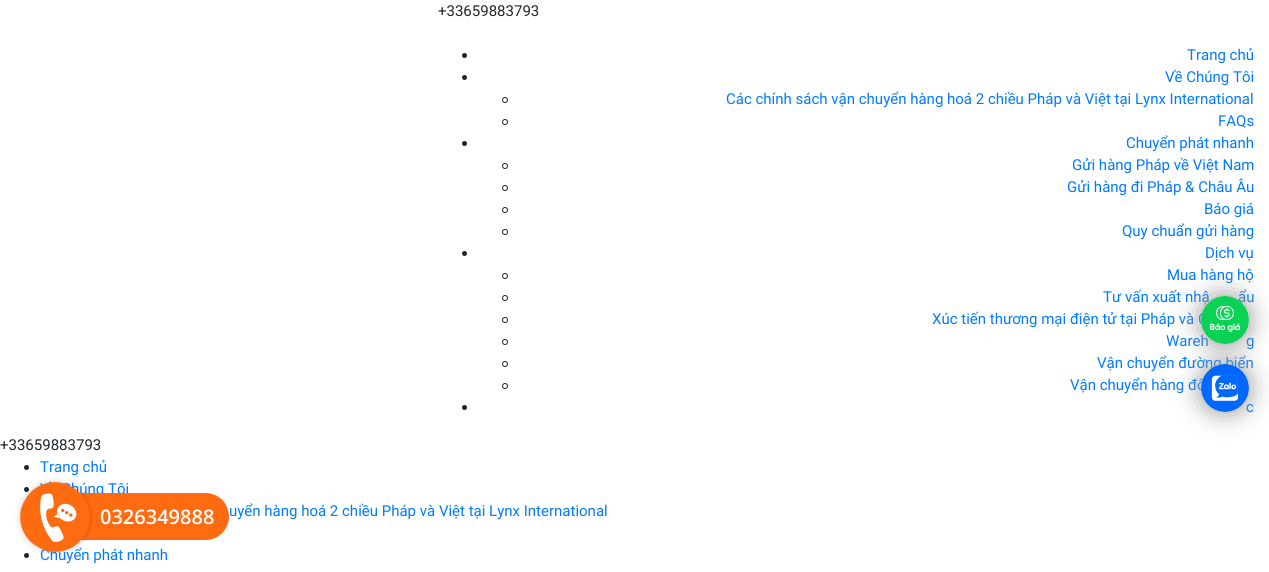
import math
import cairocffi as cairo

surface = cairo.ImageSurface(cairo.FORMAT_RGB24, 1269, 572)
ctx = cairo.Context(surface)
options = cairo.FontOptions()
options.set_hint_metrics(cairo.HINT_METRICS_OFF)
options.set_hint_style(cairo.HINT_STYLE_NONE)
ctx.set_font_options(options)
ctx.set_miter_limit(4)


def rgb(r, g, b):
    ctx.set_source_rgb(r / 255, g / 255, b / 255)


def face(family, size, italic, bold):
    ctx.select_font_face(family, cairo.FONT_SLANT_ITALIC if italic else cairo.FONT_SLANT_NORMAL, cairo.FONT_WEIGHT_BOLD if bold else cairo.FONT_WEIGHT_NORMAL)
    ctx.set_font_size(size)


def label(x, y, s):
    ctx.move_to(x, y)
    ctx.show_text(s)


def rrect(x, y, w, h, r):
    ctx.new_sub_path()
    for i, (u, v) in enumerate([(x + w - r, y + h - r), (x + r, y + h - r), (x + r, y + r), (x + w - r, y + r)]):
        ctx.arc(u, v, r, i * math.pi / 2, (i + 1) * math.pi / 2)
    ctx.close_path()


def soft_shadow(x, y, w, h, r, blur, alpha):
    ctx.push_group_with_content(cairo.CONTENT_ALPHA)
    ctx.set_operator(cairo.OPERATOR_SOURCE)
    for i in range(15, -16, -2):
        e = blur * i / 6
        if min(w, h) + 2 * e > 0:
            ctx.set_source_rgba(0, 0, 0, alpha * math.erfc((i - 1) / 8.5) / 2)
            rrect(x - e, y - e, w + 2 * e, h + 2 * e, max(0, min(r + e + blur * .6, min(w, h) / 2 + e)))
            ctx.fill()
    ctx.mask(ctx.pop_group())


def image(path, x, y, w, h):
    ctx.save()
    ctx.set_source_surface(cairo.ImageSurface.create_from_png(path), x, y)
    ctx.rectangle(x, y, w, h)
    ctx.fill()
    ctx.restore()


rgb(255, 255, 255)
ctx.paint()
face('Roboto', 15, 0, 0)
rgb(33, 37, 41)
label(438, 16, '+33659883793')
ctx.new_path()
ctx.arc(464.5, 55.5, 2.5, 0, 2 * math.pi)
ctx.fill()
rgb(0, 123, 255)
label(1187, 60, 'Trang chủ')
rgb(33, 37, 41)
ctx.new_path()
ctx.arc(464.5, 77.5, 2.5, 0, 2 * math.pi)
ctx.fill()
rgb(0, 123, 255)
label(1165, 82, 'Về Chúng Tôi')
ctx.new_path()
ctx.arc(505, 100, 2.5, 0, 2 * math.pi)
rgb(33, 37, 41)
ctx.set_line_width(1)
ctx.stroke()
rgb(0, 123, 255)
label(726, 104, 'Các chính sách vận chuyển hàng hoá 2 chiều Pháp và Việt tại Lynx International')
ctx.new_path()
ctx.arc(505, 122, 2.5, 0, 2 * math.pi)
rgb(33, 37, 41)
ctx.stroke()
rgb(0, 123, 255)
label(1218, 126, 'FAQs')
rgb(33, 37, 41)
ctx.new_path()
ctx.arc(464.5, 143.5, 2.5, 0, 2 * math.pi)
ctx.fill()
rgb(0, 123, 255)
label(1126, 148, 'Chuyển phát nhanh')
ctx.new_path()
ctx.arc(505, 166, 2.5, 0, 2 * math.pi)
rgb(33, 37, 41)
ctx.stroke()
rgb(0, 123, 255)
label(1072, 170, 'Gửi hàng Pháp về Việt Nam')
ctx.new_path()
ctx.arc(505, 188, 2.5, 0, 2 * math.pi)
rgb(33, 37, 41)
ctx.stroke()
rgb(0, 123, 255)
label(1067, 192, 'Gửi hàng đi Pháp & Châu Âu')
ctx.new_path()
ctx.arc(505, 210, 2.5, 0, 2 * math.pi)
rgb(33, 37, 41)
ctx.stroke()
rgb(0, 123, 255)
label(1204, 214, 'Báo giá')
ctx.new_path()
ctx.arc(505, 232, 2.5, 0, 2 * math.pi)
rgb(33, 37, 41)
ctx.stroke()
rgb(0, 123, 255)
label(1122, 236, 'Quy chuẩn gửi hàng')
rgb(33, 37, 41)
ctx.new_path()
ctx.arc(464.5, 253.5, 2.5, 0, 2 * math.pi)
ctx.fill()
rgb(0, 123, 255)
label(1205, 258, 'Dịch vụ')
ctx.new_path()
ctx.arc(505, 276, 2.5, 0, 2 * math.pi)
rgb(33, 37, 41)
ctx.stroke()
rgb(0, 123, 255)
label(1167, 280, 'Mua hàng hộ')
ctx.new_path()
ctx.arc(505, 298, 2.5, 0, 2 * math.pi)
rgb(33, 37, 41)
ctx.stroke()
rgb(0, 123, 255)
label(1103, 302, 'Tư vấn xuất nhậ')
label(1238, 302, 'ẩu')
ctx.new_path()
ctx.arc(505, 320, 2.5, 0, 2 * math.pi)
rgb(33, 37, 41)
ctx.stroke()
rgb(0, 123, 255)
label(932, 324, 'Xúc tiến thương mại điện tử tại Pháp và C')
ctx.new_path()
ctx.arc(505, 342, 2.5, 0, 2 * math.pi)
rgb(33, 37, 41)
ctx.stroke()
rgb(0, 123, 255)
label(1166, 346, 'Wareh')
label(1246, 346, 'g')
ctx.new_path()
ctx.arc(505, 364, 2.5, 0, 2 * math.pi)
rgb(33, 37, 41)
ctx.stroke()
rgb(0, 123, 255)
label(1097, 368, 'Vận chuyển đường biển')
ctx.new_path()
ctx.arc(505, 386, 2.5, 0, 2 * math.pi)
rgb(33, 37, 41)
ctx.stroke()
rgb(0, 123, 255)
label(1070, 390, 'Vận chuyển hàng đô')
rgb(33, 37, 41)
ctx.new_path()
ctx.arc(464.5, 407.5, 2.5, 0, 2 * math.pi)
ctx.fill()
rgb(0, 123, 255)
label(1246, 412, 'c')
rgb(33, 37, 41)
label(0, 450, '+33659883793')
ctx.new_path()
ctx.arc(26.5, 467.5, 2.5, 0, 2 * math.pi)
ctx.fill()
rgb(0, 123, 255)
label(40, 472, 'Trang chủ')
rgb(33, 37, 41)
ctx.new_path()
ctx.arc(26.5, 489.5, 2.5, 0, 2 * math.pi)
ctx.fill()
rgb(0, 123, 255)
label(40, 494, 'Về Chúng Tôi')
label(229, 516, 'uyển hàng hoá 2 chiều Pháp và Việt tại Lynx International')
rgb(33, 37, 41)
ctx.new_path()
ctx.arc(26.5, 555.5, 2.5, 0, 2 * math.pi)
ctx.fill()
rgb(0, 123, 255)
label(40, 560, 'Chuyển phát nhanh')
rgb(153, 153, 153)
soft_shadow(1201, 296, 48, 48, 24, 12.5, 1)
image('image0.png', 1201, 296, 48, 48)
soft_shadow(1201, 364, 48, 48, 24, 12.5, 1)
image('image1.png', 1201, 364, 48, 48)
rgb(255, 107, 17)
rrect(60, 493, 169, 47, 23.5)
ctx.fill()
rgb(0, 0, 0)
soft_shadow(20, 482, 70, 70, 35, 3, 0.2)
rgb(255, 107, 17)
ctx.new_path()
ctx.move_to(72, 487)
ctx.curve_to(89, 496, 95, 518, 85, 534)
ctx.curve_to(76, 551, 54, 557, 38, 547)
ctx.curve_to(21, 538, 15, 516, 25, 500)
ctx.curve_to(34, 483, 56, 477, 72, 487)
ctx.close_path()
ctx.fill()
image('image2.png', 40, 493, 37, 49)
face('Open Sans SemiBold', 20, 0, 0)
rgb(255, 255, 255)
label(100, 524, '0326349888')
surface.write_to_png('render.png')
